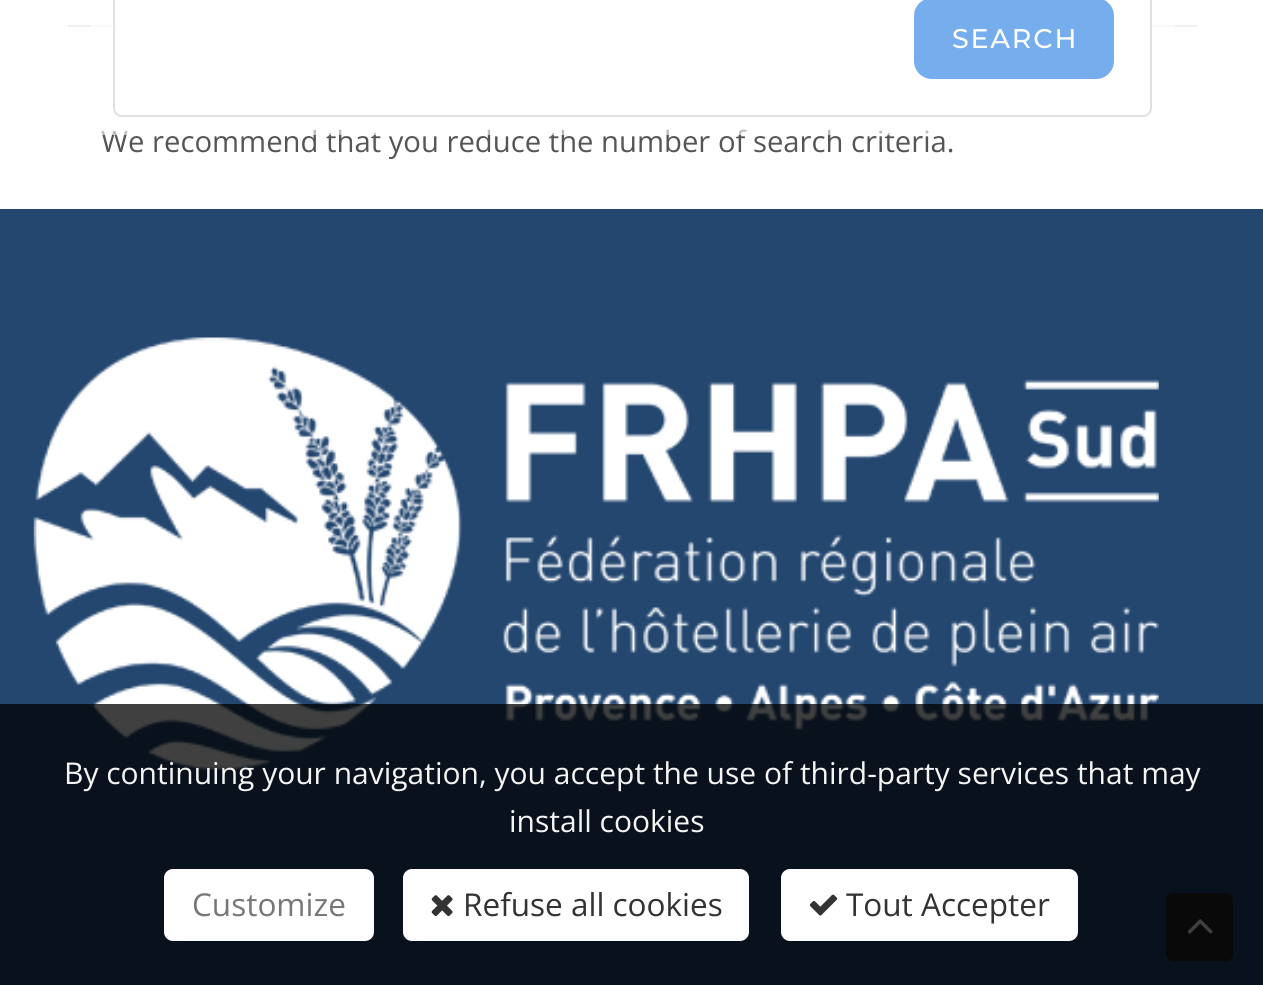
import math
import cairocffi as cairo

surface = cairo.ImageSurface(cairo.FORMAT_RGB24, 1263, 985)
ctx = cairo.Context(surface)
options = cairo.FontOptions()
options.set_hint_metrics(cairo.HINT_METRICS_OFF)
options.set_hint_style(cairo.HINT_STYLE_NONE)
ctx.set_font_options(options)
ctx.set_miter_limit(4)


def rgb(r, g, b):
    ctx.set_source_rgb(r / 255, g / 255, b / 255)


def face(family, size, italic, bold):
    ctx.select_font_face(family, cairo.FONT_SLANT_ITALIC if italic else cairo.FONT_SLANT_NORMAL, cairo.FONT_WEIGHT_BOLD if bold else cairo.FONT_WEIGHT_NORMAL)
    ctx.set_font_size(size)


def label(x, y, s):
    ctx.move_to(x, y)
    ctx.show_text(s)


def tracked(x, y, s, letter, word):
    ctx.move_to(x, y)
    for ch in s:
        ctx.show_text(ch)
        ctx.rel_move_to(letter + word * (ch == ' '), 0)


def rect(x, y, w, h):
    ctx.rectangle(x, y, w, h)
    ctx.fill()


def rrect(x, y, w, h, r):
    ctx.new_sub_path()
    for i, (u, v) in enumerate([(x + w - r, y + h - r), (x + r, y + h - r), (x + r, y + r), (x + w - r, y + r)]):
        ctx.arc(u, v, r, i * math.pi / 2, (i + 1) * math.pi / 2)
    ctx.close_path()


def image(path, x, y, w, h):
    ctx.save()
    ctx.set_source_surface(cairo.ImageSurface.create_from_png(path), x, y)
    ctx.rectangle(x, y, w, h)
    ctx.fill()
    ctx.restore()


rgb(255, 255, 255)
ctx.paint()
rgb(239, 239, 239)
rect(68, 25, 1129, 2)
face('Open Sans', 29.25, 0, 0)
rgb(85, 85, 85)
label(101, 152, 'We recommend that you reduce the number of search criteria.')
ctx.set_source_rgba(1, 1, 1, 0.6)
rect(90, 25, 1085, 110)
rgb(255, 255, 255)
rrect(114, -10, 1037, 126, 8)
ctx.fill_preserve()
rgb(224, 224, 224)
ctx.stroke()
rgb(118, 173, 236)
rrect(914, -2, 200, 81, 18)
ctx.fill()
face('Montserrat Medium', 27, 0, 0)
rgb(255, 255, 255)
tracked(952, 48, 'SEARCH', 1.75, 0)
rgb(36, 71, 112)
rect(0, 209, 1263, 776)
image('image0.png', 33, 337, 1126, 434)
rgb(34, 34, 34)
rrect(1166, 893, 67, 68, 7)
ctx.fill()
image('image3.png', 1187, 919, 26, 15)
ctx.set_source_rgba(0, 0, 0, 0.75)
rect(0, 704, 1263, 281)
face('Open Sans', 30, 0, 0)
rgb(245, 245, 245)
label(64, 784, 'By continuing your navigation, you accept the use of third-party services that may')
label(509, 832, 'install cookies')
rgb(255, 255, 255)
rrect(164, 869, 210, 72, 9)
ctx.fill()
face('Open Sans', 31.5, 0, 0)
rgb(119, 119, 119)
label(192, 916, 'Customize')
rgb(255, 255, 255)
rrect(403, 869, 346, 72, 9)
ctx.fill()
image('image1.png', 431, 895, 22, 22)
rgb(51, 51, 51)
label(463, 916, 'Refuse all cookies')
rgb(255, 255, 255)
rrect(781, 869, 297, 72, 9)
ctx.fill()
image('image2.png', 809, 894, 29, 22)
rgb(51, 51, 51)
label(846, 916, 'Tout Accepter')
surface.write_to_png('render.png')
